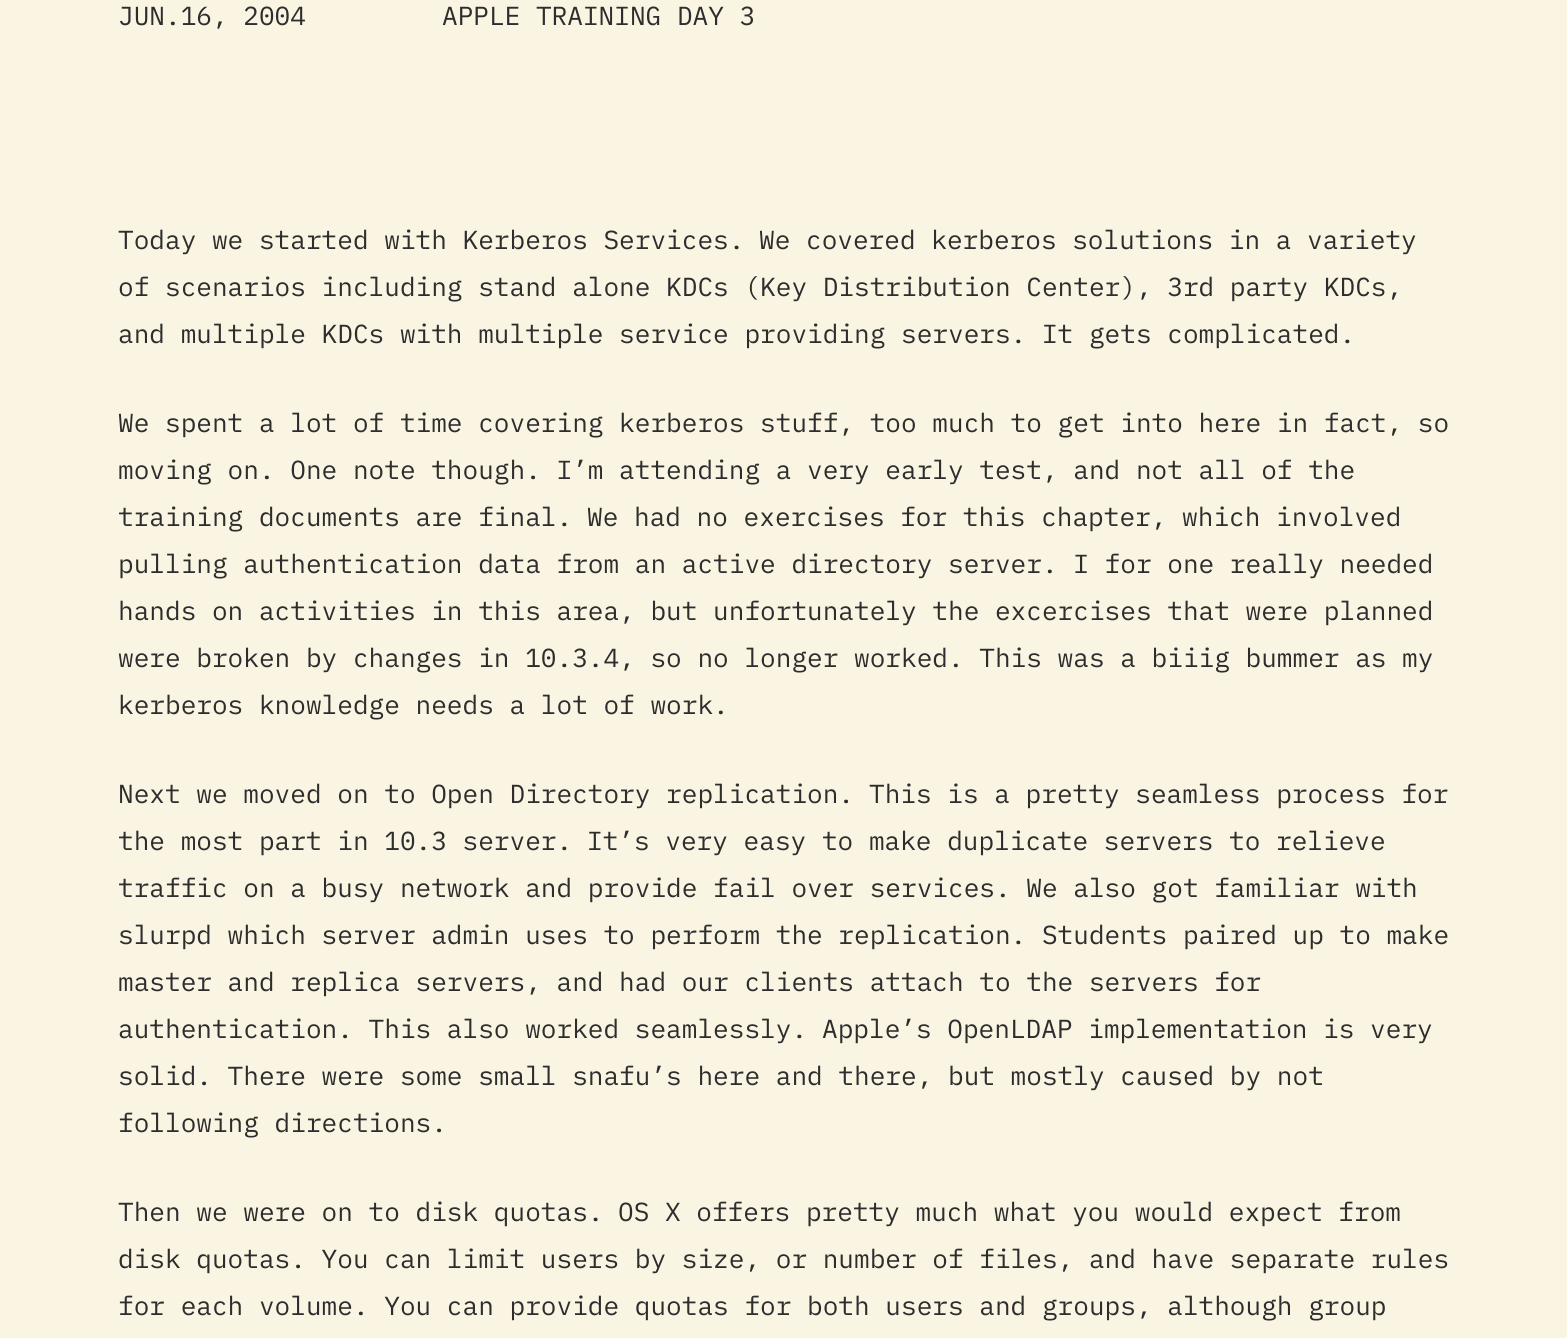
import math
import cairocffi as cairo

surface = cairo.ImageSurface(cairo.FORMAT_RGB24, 1567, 1338)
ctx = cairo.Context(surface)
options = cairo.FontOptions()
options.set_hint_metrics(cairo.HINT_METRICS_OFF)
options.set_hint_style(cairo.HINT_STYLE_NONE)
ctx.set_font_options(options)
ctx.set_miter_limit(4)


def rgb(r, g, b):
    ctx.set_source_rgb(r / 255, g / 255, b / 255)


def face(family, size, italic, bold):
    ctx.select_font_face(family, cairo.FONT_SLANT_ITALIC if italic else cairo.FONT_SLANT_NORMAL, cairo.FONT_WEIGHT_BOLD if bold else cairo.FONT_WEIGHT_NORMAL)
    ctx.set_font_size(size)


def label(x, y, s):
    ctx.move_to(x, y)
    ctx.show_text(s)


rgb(250, 244, 226)
ctx.paint()
face('IBM Plex Mono', 26.1, 0, 0)
rgb(45, 45, 45)
label(118, 25, 'JUN.16, 2004')
label(442, 25, 'APPLE TRAINING DAY 3')
label(118, 249, 'Today we started with Kerberos Services.')
label(759, 249, 'We covered kerberos solutions in a variety')
label(118, 296, 'of scenarios including stand alone KDCs (Key Distribution Center), 3rd party KDCs,')
label(118, 343, 'and multiple KDCs with multiple service providing servers. It gets complicated.')
label(118, 432, 'We spent a lot of time covering kerberos stuff, too much to get into here in fact, so')
label(118, 479, 'moving on. One note though. I’m attending a very early test, and not all of the')
label(118, 526, 'training documents are final.')
label(587, 526, 'We had no exercises for this chapter, which involved')
label(118, 573, 'pulling authentication data from an active directory server. I for one really needed')
label(118, 620, 'hands on activities in this area, but unfortunately the excercises that were planned')
label(118, 667, 'were broken by changes in 10.3.4, so no longer worked. This was a biiig bummer as my')
label(118, 714, 'kerberos knowledge needs a lot of work.')
label(118, 803, 'Next we moved on to Open Directory replication.')
label(869, 803, 'This is a pretty seamless process for')
label(118, 850, 'the most part in 10.3 server.')
label(587, 850, 'It’s very easy to make duplicate servers to relieve')
label(118, 897, 'traffic on a busy network and provide fail over services. We also got familiar with')
label(118, 944, 'slurpd which server admin uses to perform the replication. Students paired up to make')
label(118, 991, 'master and replica servers, and had our clients attach to the servers for')
label(118, 1038, 'authentication. This also worked seamlessly.')
label(822, 1038, 'Apple’s OpenLDAP implementation is very')
label(118, 1085, 'solid. There were some small snafu’s here and there, but mostly caused by not')
label(118, 1132, 'following directions.')
label(118, 1221, 'Then we were on to disk quotas.')
label(618, 1221, 'OS X offers pretty much what you would expect from')
label(118, 1268, 'disk quotas. You can limit users by size, or number of files, and have separate rules')
label(118, 1315, 'for each volume. You can provide quotas for both users and groups, although group')
surface.write_to_png('render.png')
